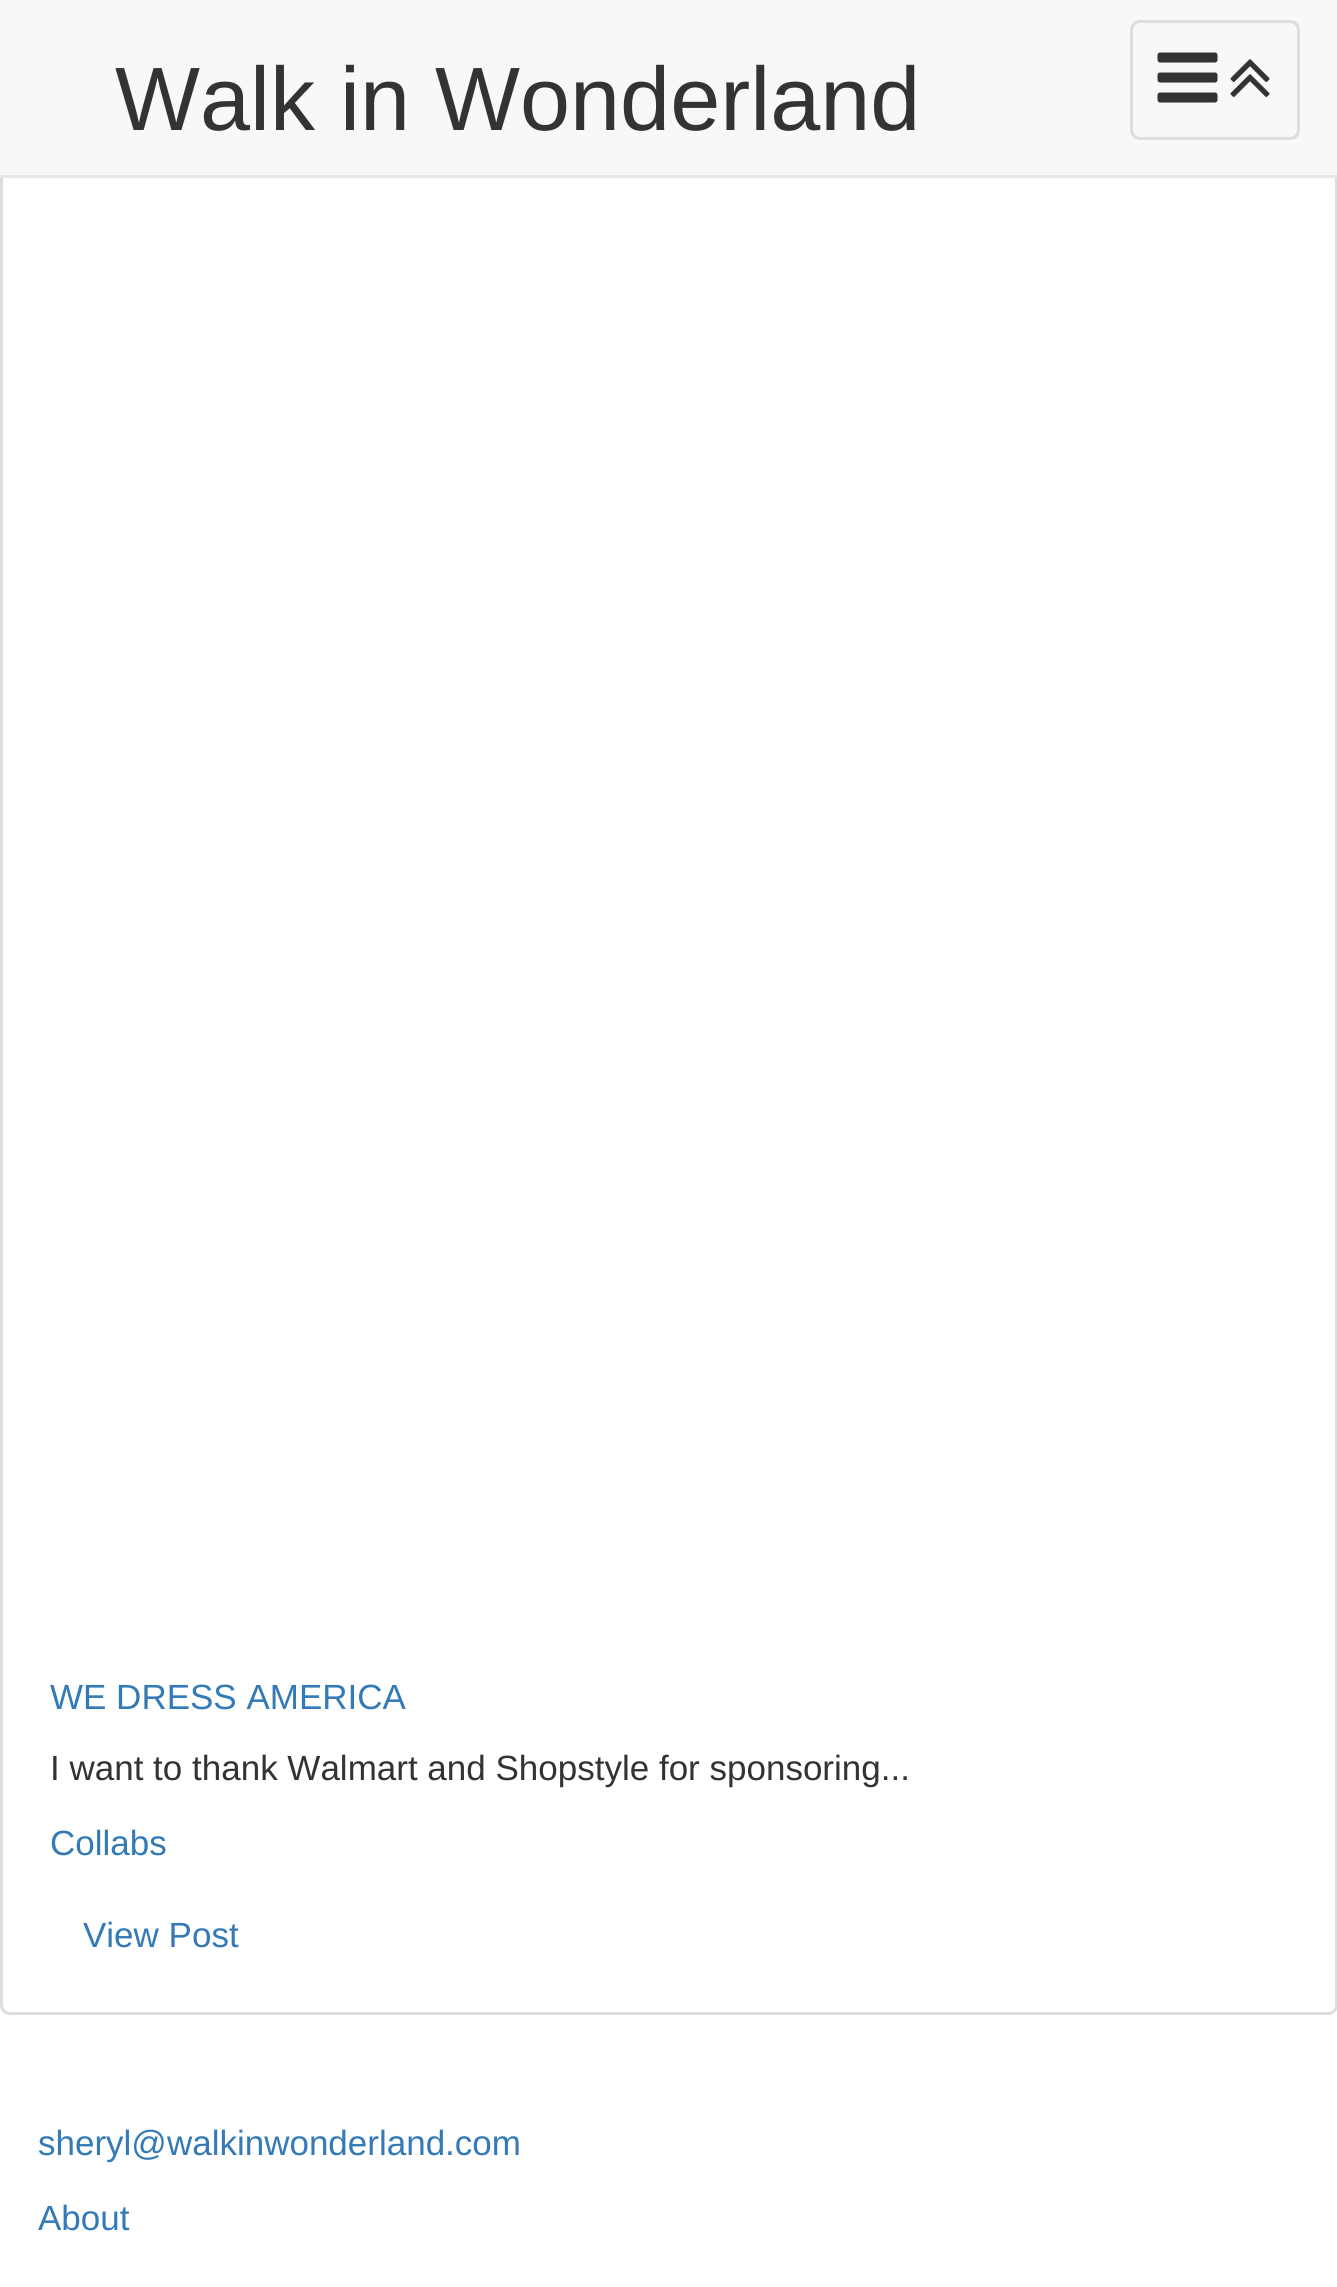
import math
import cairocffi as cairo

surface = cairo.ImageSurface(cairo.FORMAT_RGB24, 1337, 2287)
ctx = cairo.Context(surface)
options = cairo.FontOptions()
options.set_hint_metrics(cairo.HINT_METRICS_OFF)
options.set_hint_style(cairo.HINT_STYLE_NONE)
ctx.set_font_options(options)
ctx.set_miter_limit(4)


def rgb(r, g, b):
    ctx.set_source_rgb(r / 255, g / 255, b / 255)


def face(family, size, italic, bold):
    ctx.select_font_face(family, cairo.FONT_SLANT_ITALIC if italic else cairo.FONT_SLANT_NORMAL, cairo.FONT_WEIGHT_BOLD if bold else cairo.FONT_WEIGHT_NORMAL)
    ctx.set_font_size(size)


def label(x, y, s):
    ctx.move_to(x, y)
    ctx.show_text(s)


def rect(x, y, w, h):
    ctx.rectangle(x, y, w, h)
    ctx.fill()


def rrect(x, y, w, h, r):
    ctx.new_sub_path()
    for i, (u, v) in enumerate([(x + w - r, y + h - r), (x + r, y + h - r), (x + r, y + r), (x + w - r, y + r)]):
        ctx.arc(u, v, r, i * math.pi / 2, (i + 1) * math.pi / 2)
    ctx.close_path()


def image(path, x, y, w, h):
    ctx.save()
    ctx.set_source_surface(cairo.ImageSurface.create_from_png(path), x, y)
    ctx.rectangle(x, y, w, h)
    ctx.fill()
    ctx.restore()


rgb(255, 255, 255)
ctx.paint()
rrect(1.5, 9.5, 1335, 2004, 8.5)
rgb(221, 221, 221)
ctx.set_line_width(3)
ctx.stroke()
rgb(248, 248, 248)
rect(0, 0, 1337, 175)
rgb(231, 231, 231)
rect(0, 175, 1337, 3)
face('Liberation Sans', 90, 0, 0)
rgb(51, 51, 51)
label(115, 130, 'Walk in Wonderland')
rrect(1131.5, 21.5, 167, 117, 8.5)
rgb(221, 221, 221)
ctx.stroke()
image('image0.png', 1157, 52, 61, 51)
image('image1.png', 1230, 59, 40, 38)
face('Liberation Sans', 35, 0, 0)
rgb(51, 122, 183)
label(50, 1709, 'WE DRESS AMERICA')
rgb(51, 51, 51)
label(50, 1780, 'I want to thank Walmart and Shopstyle for sponsoring...')
rgb(51, 122, 183)
label(50, 1855, 'Collabs')
label(83, 1947, 'View Post')
label(38, 2155, 'sheryl@walkinwonderland.com')
label(38, 2230, 'About')
surface.write_to_png('render.png')
